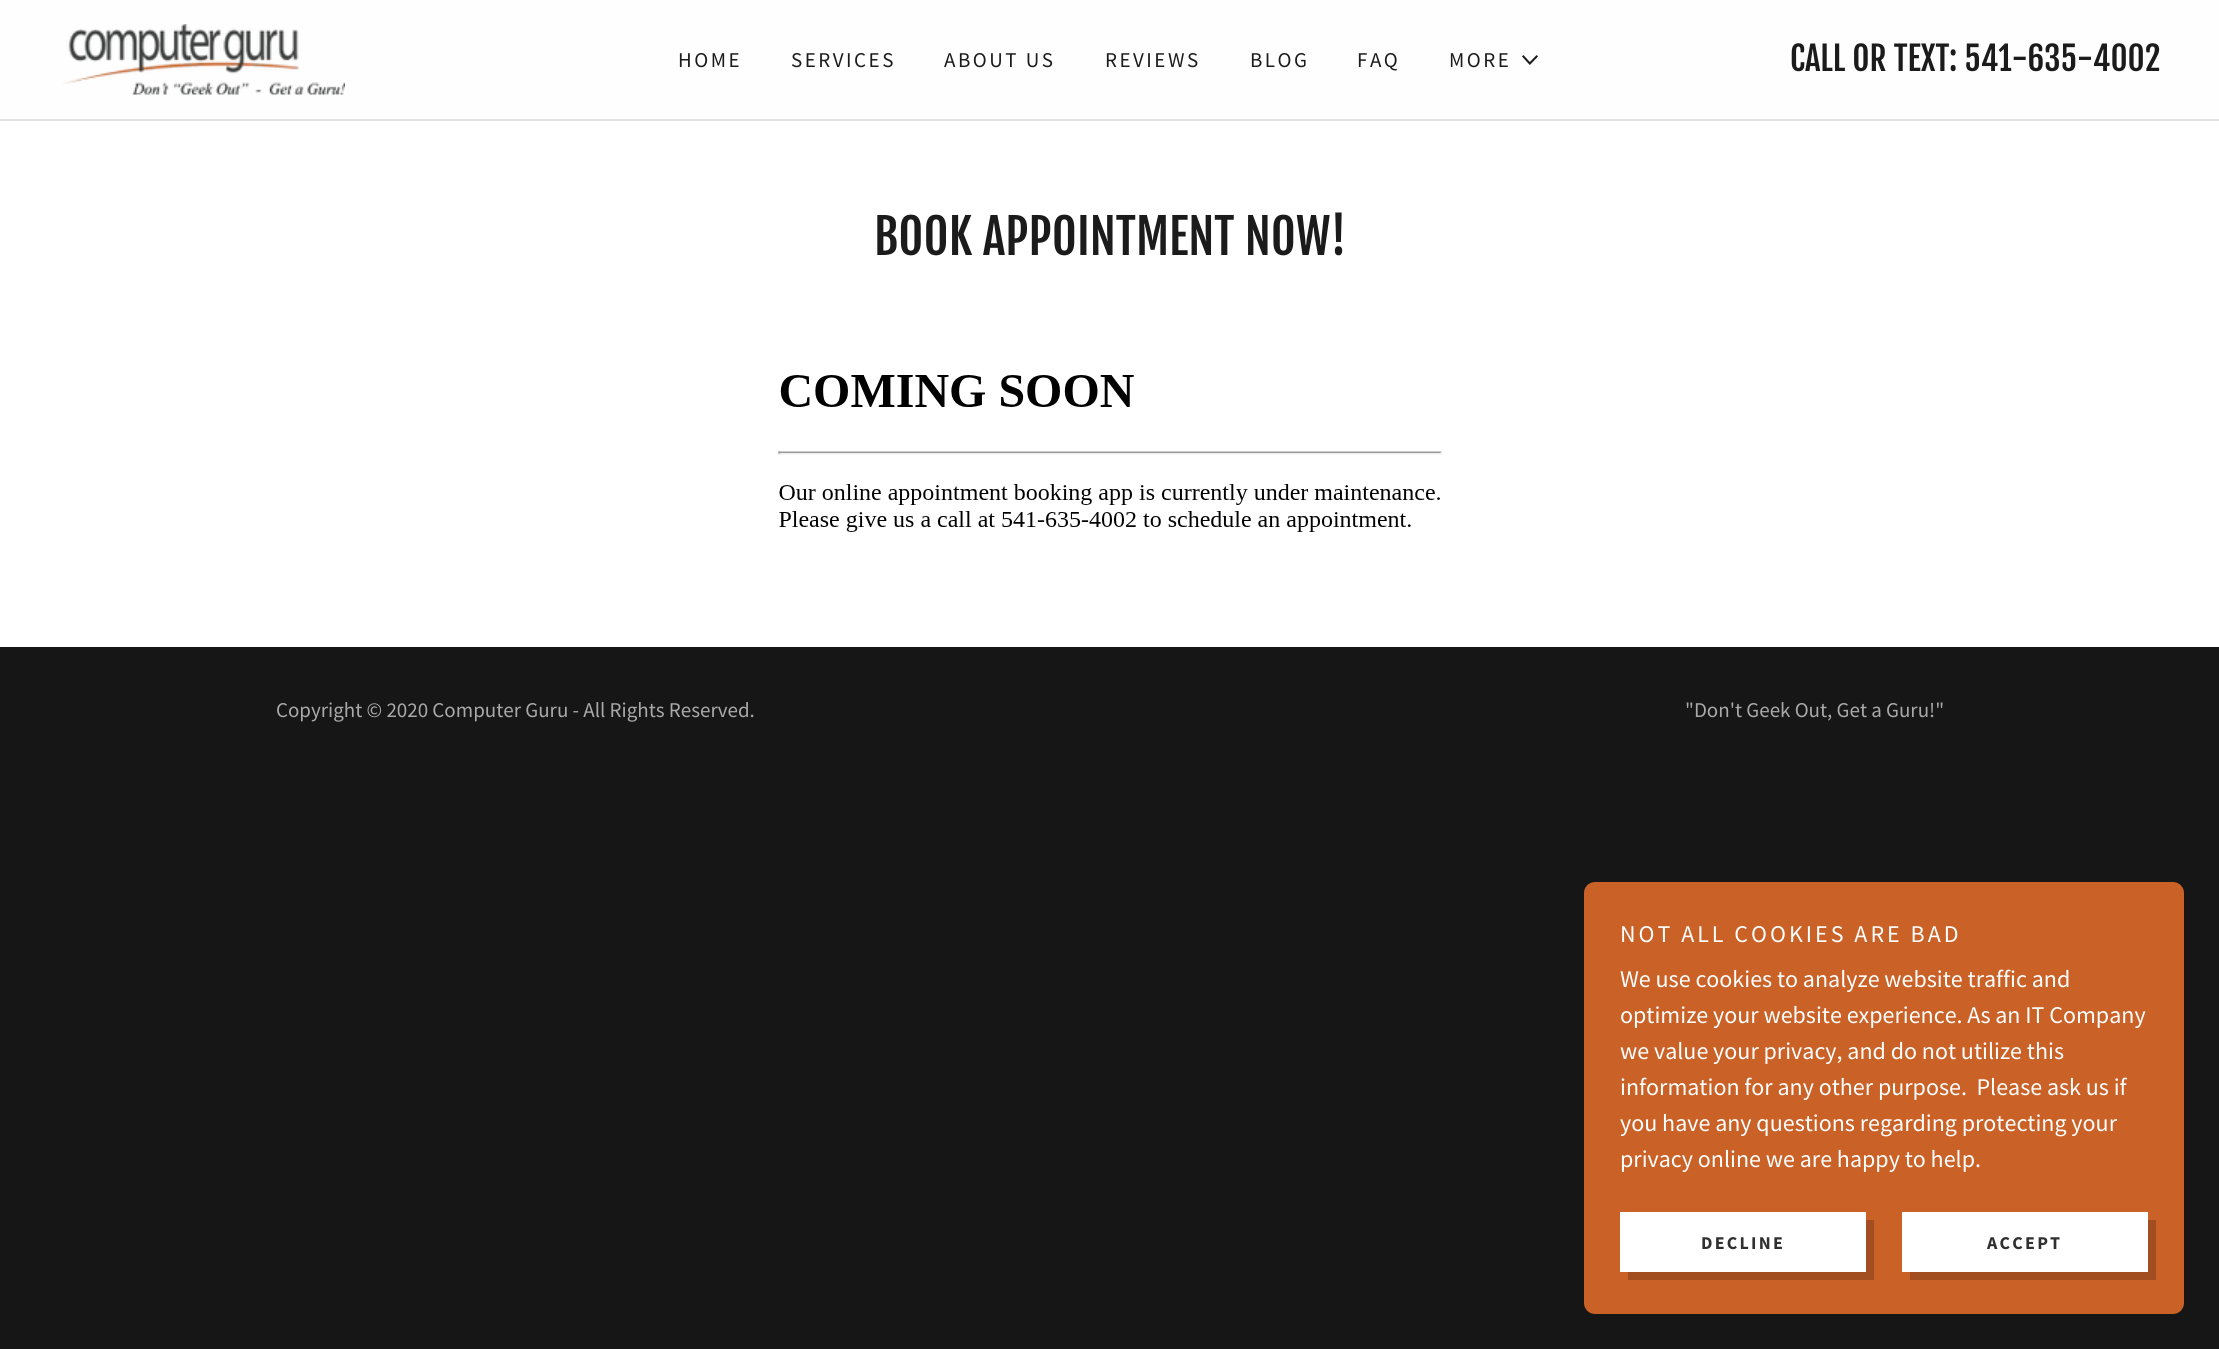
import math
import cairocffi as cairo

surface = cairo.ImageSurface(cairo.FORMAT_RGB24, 2219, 1349)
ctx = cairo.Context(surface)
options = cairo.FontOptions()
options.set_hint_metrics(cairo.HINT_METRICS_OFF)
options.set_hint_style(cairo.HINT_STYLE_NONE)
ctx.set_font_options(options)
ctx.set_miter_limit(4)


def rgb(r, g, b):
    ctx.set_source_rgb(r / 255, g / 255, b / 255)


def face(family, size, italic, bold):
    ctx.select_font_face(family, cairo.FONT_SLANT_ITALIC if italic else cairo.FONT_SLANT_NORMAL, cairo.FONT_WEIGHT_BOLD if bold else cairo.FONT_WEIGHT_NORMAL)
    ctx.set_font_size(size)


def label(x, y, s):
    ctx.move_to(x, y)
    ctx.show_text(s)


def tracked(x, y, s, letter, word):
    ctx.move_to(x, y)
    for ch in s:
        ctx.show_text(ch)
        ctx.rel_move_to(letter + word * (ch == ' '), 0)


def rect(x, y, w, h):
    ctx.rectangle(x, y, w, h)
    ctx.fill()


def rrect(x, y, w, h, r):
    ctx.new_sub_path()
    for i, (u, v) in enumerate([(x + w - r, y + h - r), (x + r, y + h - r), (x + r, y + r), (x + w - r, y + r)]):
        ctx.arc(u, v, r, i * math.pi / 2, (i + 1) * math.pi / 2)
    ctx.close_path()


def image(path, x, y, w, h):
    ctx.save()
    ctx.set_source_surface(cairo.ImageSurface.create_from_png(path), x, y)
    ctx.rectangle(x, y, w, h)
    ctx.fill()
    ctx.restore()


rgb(22, 22, 22)
ctx.paint()
rgb(254, 254, 254)
rect(0, 0, 2219, 119)
image('image0.png', 63, 24, 282, 71)
face('Source Sans Pro', 21, 0, 0)
rgb(27, 27, 27)
tracked(678, 67, 'HOME', 2.5, 0)
tracked(791, 67, 'SERVICES', 2.5, 0)
tracked(944, 67, 'ABOUT US', 2.5, 0)
tracked(1105, 67, 'REVIEWS', 2.5, 0)
tracked(1250, 67, 'BLOG', 2.5, 0)
tracked(1357, 67, 'FAQ', 2.5, 0)
tracked(1449, 67, 'MORE', 2.5, 0)
image('image1.png', 1522, 55, 16, 10)
face('Fjalla One', 33, 0, 0)
label(1790, 71, 'CALL OR TEXT: 541-635-4002')
rgb(226, 226, 226)
rect(0, 119, 2219, 2)
rgb(255, 255, 255)
rect(0, 121, 2219, 526)
face('Fjalla One', 48, 0, 0)
rgb(27, 27, 27)
label(874, 255, 'BOOK APPOINTMENT NOW!')
image('image2.png', 778, 375, 664, 157)
face('Source Sans Pro', 21, 0, 0)
rgb(169, 169, 169)
label(276, 717, 'Copyright © 2020 Computer Guru - All Rights Reserved.')
label(1685, 717, '"Don\'t Geek Out, Get a Guru!"')
rgb(202, 98, 40)
rrect(1584, 882, 600, 432, 11)
ctx.fill()
face('Source Sans Pro', 24, 0, 0)
rgb(255, 255, 255)
tracked(1620, 942, 'NOT ALL COOKIES ARE BAD', 3, 0)
label(1620, 987, 'We use cookies to analyze website traffic and')
label(1620, 1023, 'optimize your website experience. As an IT Company')
label(1620, 1059, 'we value your privacy, and do not utilize this')
label(1620, 1095, 'information for any other purpose.  Please ask us if')
label(1620, 1131, 'you have any questions regarding protecting your')
label(1620, 1167, 'privacy online we are happy to help.')
rect(1620, 1212, 246, 60)
rgb(162, 78, 32)
ctx.new_path()
ctx.move_to(1628, 1272)
ctx.line_to(1628, 1280)
ctx.line_to(1874, 1280)
ctx.line_to(1874, 1220)
ctx.line_to(1866, 1220)
ctx.line_to(1866, 1272)
ctx.close_path()
ctx.fill()
face('Source Sans Pro', 18, 0, 1)
rgb(48, 48, 48)
tracked(1701, 1249, 'DECLINE', 2.25, 0)
rgb(255, 255, 255)
rect(1902, 1212, 246, 60)
rgb(162, 78, 32)
ctx.new_path()
ctx.move_to(1910, 1272)
ctx.line_to(1910, 1280)
ctx.line_to(2156, 1280)
ctx.line_to(2156, 1220)
ctx.line_to(2148, 1220)
ctx.line_to(2148, 1272)
ctx.close_path()
ctx.fill()
rgb(48, 48, 48)
tracked(1987, 1249, 'ACCEPT', 2.25, 0)
surface.write_to_png('render.png')
